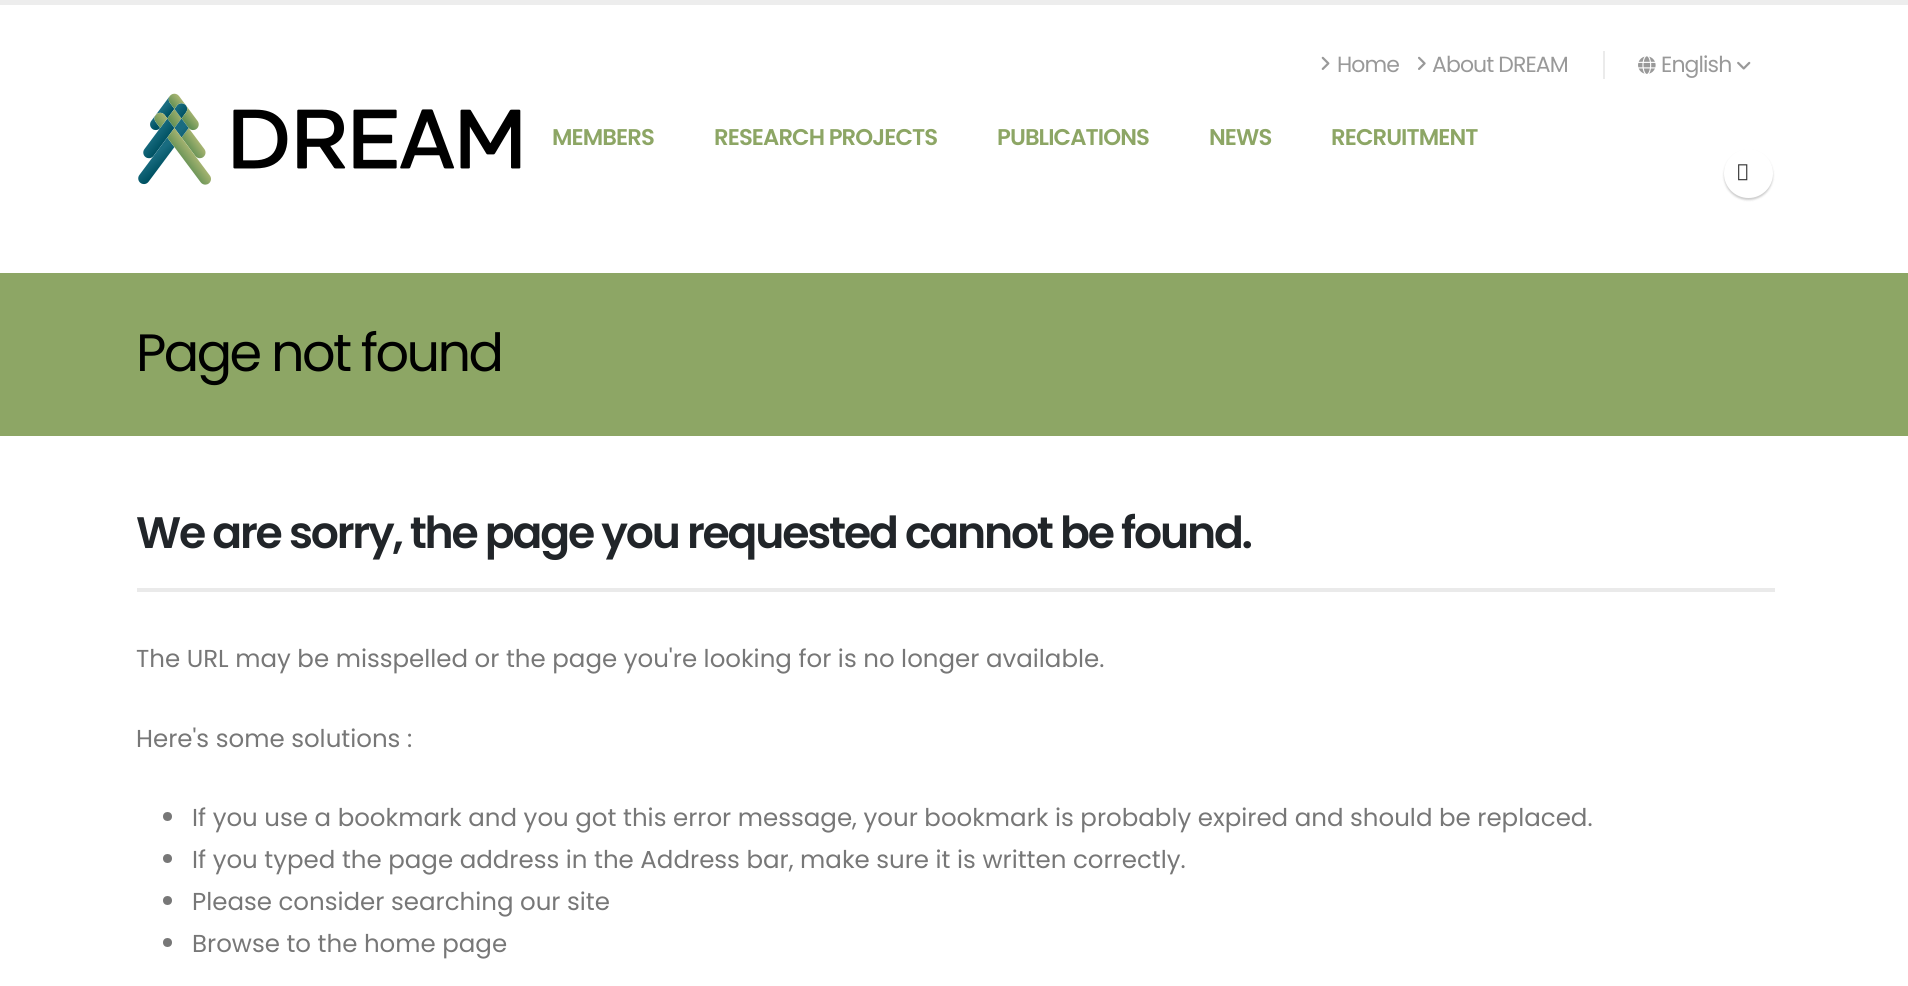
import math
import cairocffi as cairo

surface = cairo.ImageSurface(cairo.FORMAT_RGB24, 1908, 986)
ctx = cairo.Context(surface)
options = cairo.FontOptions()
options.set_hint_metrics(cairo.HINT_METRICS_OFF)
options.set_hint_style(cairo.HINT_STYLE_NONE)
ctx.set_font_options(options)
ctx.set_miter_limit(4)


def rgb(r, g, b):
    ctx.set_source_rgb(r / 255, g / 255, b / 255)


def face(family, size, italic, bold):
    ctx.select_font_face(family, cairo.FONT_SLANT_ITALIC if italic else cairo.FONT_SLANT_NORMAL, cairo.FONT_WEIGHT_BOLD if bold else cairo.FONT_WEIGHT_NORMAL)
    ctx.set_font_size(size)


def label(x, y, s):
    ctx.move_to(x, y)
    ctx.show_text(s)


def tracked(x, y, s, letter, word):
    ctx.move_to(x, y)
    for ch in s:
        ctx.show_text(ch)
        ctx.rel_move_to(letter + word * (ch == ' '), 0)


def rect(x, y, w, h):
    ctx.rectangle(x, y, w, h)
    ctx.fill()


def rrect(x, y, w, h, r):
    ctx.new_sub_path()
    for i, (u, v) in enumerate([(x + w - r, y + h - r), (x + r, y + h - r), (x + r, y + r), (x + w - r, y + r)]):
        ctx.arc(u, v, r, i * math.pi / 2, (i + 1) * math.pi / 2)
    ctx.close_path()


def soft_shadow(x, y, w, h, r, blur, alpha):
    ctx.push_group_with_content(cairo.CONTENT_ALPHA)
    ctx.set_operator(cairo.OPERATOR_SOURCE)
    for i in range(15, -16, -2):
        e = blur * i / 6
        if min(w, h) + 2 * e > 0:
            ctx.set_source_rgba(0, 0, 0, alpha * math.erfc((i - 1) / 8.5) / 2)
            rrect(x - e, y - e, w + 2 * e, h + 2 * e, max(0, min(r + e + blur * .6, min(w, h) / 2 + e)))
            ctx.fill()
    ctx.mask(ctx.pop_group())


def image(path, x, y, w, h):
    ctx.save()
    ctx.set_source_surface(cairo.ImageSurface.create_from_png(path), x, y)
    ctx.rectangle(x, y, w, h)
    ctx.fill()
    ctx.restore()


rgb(255, 255, 255)
ctx.paint()
rgb(237, 237, 237)
rect(0, 0, 1908, 5)
image('image0.png', 138, 93, 383, 92)
image('image1.png', 1321, 56, 9, 14)
face('Poppins', 22, 0, 0)
rgb(153, 153, 153)
tracked(1337, 72, 'Home', -0.9, 0)
image('image2.png', 1418, 56, 8, 14)
tracked(1432, 72, 'About DREAM', -0.9, 0)
rgb(235, 235, 235)
rect(1603, 51, 2, 28)
image('image3.png', 1638, 56, 18, 18)
rgb(153, 153, 153)
tracked(1661, 72, 'English', -0.9, 0)
image('image4.png', 1737, 61, 14, 9)
face('Poppins SemiBold', 22.75, 0, 0)
rgb(141, 166, 101)
tracked(552, 145, 'MEMBERS', -0.9, 0)
tracked(714, 145, 'RESEARCH PROJECTS', -0.9, 0)
tracked(997, 145, 'PUBLICATIONS', -0.9, 0)
tracked(1209, 145, 'NEWS', -0.9, 0)
tracked(1331, 145, 'RECRUITMENT', -0.9, 0)
rgb(0, 0, 0)
soft_shadow(1724, 151, 49, 49, 24.5, 1, 0.2)
rgb(255, 255, 255)
ctx.arc(1748.5, 173.5, 24.5, 0, 2 * math.pi)
ctx.fill()
image('image5.png', 1738, 164, 10, 17)
rgb(141, 166, 101)
rect(0, 273, 1908, 163)
face('Poppins', 52.5, 0, 0)
rgb(0, 0, 0)
tracked(136, 371, 'Page not found', -2.6, 0)
rgb(234, 234, 234)
rect(137, 588, 1638, 4)
face('Poppins SemiBold', 44.1, 0, 0)
rgb(33, 37, 41)
tracked(136, 548, 'We are sorry, the page you requested cannot be found.', -2.2, 0)
face('Poppins', 24.5, 0, 0)
rgb(119, 119, 119)
label(136, 667, 'The URL may be misspelled or the page you\'re looking for is no longer available.')
label(136, 747, 'Here\'s some solutions :')
ctx.new_path()
ctx.arc(167.5, 816.5, 4.5, 0, 2 * math.pi)
ctx.fill()
label(192, 826, 'If you use a bookmark and you got this error message, your bookmark is probably expired and should be replaced.')
ctx.new_path()
ctx.arc(167.5, 858.5, 4.5, 0, 2 * math.pi)
ctx.fill()
label(192, 868, 'If you typed the page address in the Address bar, make sure it is written correctly.')
ctx.new_path()
ctx.arc(167.5, 900.5, 4.5, 0, 2 * math.pi)
ctx.fill()
label(192, 910, 'Please consider searching our site')
ctx.new_path()
ctx.arc(167.5, 942.5, 4.5, 0, 2 * math.pi)
ctx.fill()
label(192, 952, 'Browse to the home page')
surface.write_to_png('render.png')
